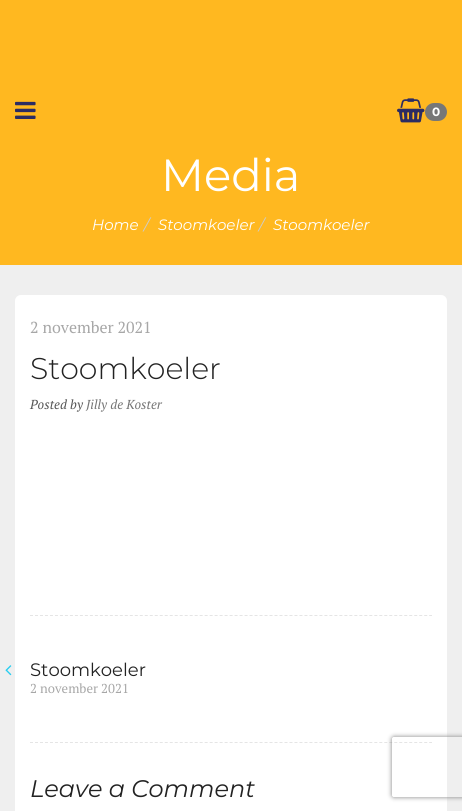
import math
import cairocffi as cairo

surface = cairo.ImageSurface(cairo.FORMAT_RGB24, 462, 811)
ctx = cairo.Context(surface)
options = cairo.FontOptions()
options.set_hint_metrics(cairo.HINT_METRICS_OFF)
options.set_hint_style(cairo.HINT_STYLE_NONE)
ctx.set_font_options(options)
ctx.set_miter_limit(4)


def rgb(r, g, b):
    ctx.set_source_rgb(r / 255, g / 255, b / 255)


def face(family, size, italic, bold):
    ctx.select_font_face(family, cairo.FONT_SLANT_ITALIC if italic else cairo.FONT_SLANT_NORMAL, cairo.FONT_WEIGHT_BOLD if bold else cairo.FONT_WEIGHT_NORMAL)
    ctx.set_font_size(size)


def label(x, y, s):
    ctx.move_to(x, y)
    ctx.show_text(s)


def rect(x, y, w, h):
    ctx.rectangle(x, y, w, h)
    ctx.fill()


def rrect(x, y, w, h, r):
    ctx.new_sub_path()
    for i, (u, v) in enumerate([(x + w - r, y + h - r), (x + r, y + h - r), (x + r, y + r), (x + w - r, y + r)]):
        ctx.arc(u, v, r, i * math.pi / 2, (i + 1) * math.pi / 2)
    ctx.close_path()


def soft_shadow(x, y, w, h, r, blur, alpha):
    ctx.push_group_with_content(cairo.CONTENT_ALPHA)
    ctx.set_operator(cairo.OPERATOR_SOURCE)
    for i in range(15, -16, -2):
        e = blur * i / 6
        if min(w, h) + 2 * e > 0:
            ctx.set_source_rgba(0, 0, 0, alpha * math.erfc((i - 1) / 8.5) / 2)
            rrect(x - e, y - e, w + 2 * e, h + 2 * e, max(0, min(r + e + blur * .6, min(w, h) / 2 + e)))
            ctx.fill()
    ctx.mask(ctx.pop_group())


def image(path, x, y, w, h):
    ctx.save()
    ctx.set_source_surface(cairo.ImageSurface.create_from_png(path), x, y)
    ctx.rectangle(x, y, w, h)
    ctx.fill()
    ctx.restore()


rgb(239, 239, 239)
ctx.paint()
rgb(255, 184, 32)
rect(0, 0, 462, 265)
image('image0.png', 15, 101, 21, 18)
image('image1.png', 397, 98, 28, 25)
rgb(119, 119, 119)
rrect(425, 103, 22, 18, 9)
ctx.fill()
face('Montserrat', 12, 0, 1)
rgb(255, 255, 255)
label(432, 116, '0')
face('Montserrat', 45, 0, 0)
label(161, 191, 'Media')
face('Montserrat', 15, 1, 0)
label(92, 230, 'Home')
rgb(204, 204, 204)
label(144, 230, '/')
rgb(255, 255, 255)
label(158, 230, 'Stoomkoeler')
rgb(204, 204, 204)
label(259, 230, '/')
rgb(255, 255, 255)
label(273, 230, 'Stoomkoeler')
rrect(15, 295, 432, 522, 6)
ctx.fill()
face('PT Serif', 16, 0, 0)
rgb(167, 167, 167)
label(30, 333, '2 november 2021')
face('Montserrat Light', 30, 0, 0)
rgb(34, 34, 34)
label(30, 379, 'Stoomkoeler')
face('PT Serif', 13, 1, 0)
rgb(85, 85, 85)
label(30, 409, 'Posted by')
rgb(117, 117, 117)
label(86, 409, 'Jilly de Koster')
ctx.new_path()
ctx.move_to(30, 615.5)
ctx.line_to(432, 615.5)
rgb(229, 229, 229)
ctx.set_line_width(1)
ctx.set_dash([3, 1.99])
ctx.stroke()
image('image2.png', 5, 665, 7, 11)
face('Montserrat', 18, 0, 0)
rgb(34, 34, 34)
label(30, 676, 'Stoomkoeler')
face('PT Serif', 13, 0, 0)
rgb(167, 167, 167)
label(30, 693, '2 november 2021')
ctx.new_path()
ctx.move_to(30, 742.5)
ctx.line_to(432, 742.5)
rgb(229, 229, 229)
ctx.stroke()
face('Montserrat', 24, 1, 0)
rgb(34, 34, 34)
label(30, 797, 'Leave a Comment')
ctx.save()
ctx.set_fill_rule(cairo.FILL_RULE_EVEN_ODD)
ctx.new_path()
ctx.move_to(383, 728)
ctx.line_to(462, 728)
ctx.line_to(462, 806)
ctx.line_to(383, 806)
ctx.close_path()
ctx.move_to(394, 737)
ctx.line_to(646, 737)
ctx.curve_to(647, 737, 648, 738, 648, 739)
ctx.line_to(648, 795)
ctx.curve_to(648, 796, 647, 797, 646, 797)
ctx.line_to(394, 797)
ctx.curve_to(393, 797, 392, 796, 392, 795)
ctx.line_to(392, 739)
ctx.curve_to(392, 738, 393, 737, 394, 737)
ctx.close_path()
ctx.clip()
rgb(128, 128, 128)
soft_shadow(392, 737, 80, 60, 2, 2.5, 1)
ctx.restore()
surface.write_to_png('render.png')
